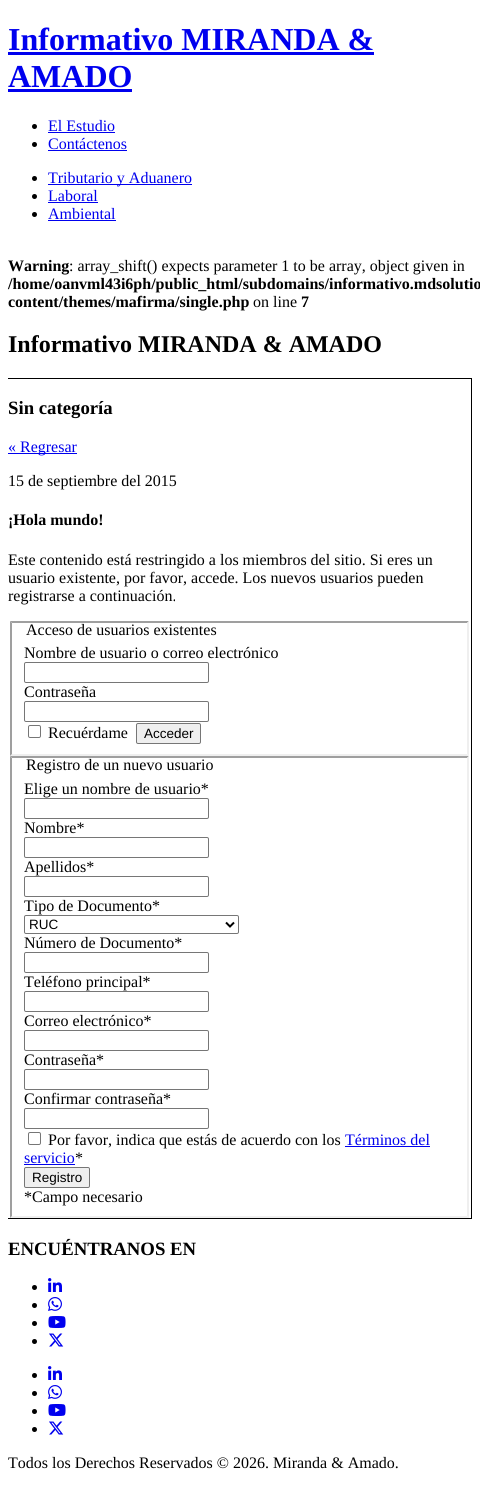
import math
import cairocffi as cairo

surface = cairo.ImageSurface(cairo.FORMAT_RGB24, 480, 1496)
ctx = cairo.Context(surface)
options = cairo.FontOptions()
options.set_hint_metrics(cairo.HINT_METRICS_OFF)
options.set_hint_style(cairo.HINT_STYLE_NONE)
ctx.set_font_options(options)
ctx.set_miter_limit(4)


def rgb(r, g, b):
    ctx.set_source_rgb(r / 255, g / 255, b / 255)


def face(family, size, italic, bold):
    ctx.select_font_face(family, cairo.FONT_SLANT_ITALIC if italic else cairo.FONT_SLANT_NORMAL, cairo.FONT_WEIGHT_BOLD if bold else cairo.FONT_WEIGHT_NORMAL)
    ctx.set_font_size(size)


def label(x, y, s):
    ctx.move_to(x, y)
    ctx.show_text(s)


def rect(x, y, w, h):
    ctx.rectangle(x, y, w, h)
    ctx.fill()


def rrect(x, y, w, h, r):
    ctx.new_sub_path()
    for i, (u, v) in enumerate([(x + w - r, y + h - r), (x + r, y + h - r), (x + r, y + r), (x + w - r, y + r)]):
        ctx.arc(u, v, r, i * math.pi / 2, (i + 1) * math.pi / 2)
    ctx.close_path()


def image(path, x, y, w, h):
    ctx.save()
    ctx.set_source_surface(cairo.ImageSurface.create_from_png(path), x, y)
    ctx.rectangle(x, y, w, h)
    ctx.fill()
    ctx.restore()


rgb(255, 255, 255)
ctx.paint()
face('Liberation Serif', 32, 0, 1)
rgb(0, 0, 238)
label(8, 50, 'Informativo MIRANDA &')
rect(8, 52, 366, 3)
label(8, 87, 'AMADO')
rect(8, 89, 124, 3)
rgb(0, 0, 0)
ctx.new_path()
ctx.arc(34.5, 126.5, 2.5, 0, 2 * math.pi)
ctx.fill()
face('Liberation Serif', 16, 0, 0)
rgb(0, 0, 238)
label(48, 131, 'El Estudio')
rect(48, 132, 67, 1)
rgb(0, 0, 0)
ctx.new_path()
ctx.arc(34.5, 144.5, 2.5, 0, 2 * math.pi)
ctx.fill()
rgb(0, 0, 238)
label(48, 149, 'Contáctenos')
rect(48, 150, 79, 1)
rgb(0, 0, 0)
ctx.new_path()
ctx.arc(34.5, 178.5, 2.5, 0, 2 * math.pi)
ctx.fill()
rgb(0, 0, 238)
rect(48, 184, 144, 1)
label(48, 183, 'Tributario y Aduanero')
rgb(0, 0, 0)
ctx.new_path()
ctx.arc(34.5, 196.5, 2.5, 0, 2 * math.pi)
ctx.fill()
rgb(0, 0, 238)
label(48, 201, 'Laboral')
rect(48, 202, 50, 1)
rgb(0, 0, 0)
ctx.new_path()
ctx.arc(34.5, 214.5, 2.5, 0, 2 * math.pi)
ctx.fill()
rgb(0, 0, 238)
label(48, 219, 'Ambiental')
rect(48, 220, 68, 1)
face('Liberation Serif', 16, 0, 1)
rgb(0, 0, 0)
label(8, 271, 'Warning')
face('Liberation Serif', 16, 0, 0)
label(69, 271, ': array_shift() expects parameter 1 to be array, object given in')
face('Liberation Serif', 16, 0, 1)
label(8, 289, '/home/oanvml43i6ph/public_html/subdomains/informativo.mdsolutio')
label(8, 307, 'content/themes/mafirma/single.php')
face('Liberation Serif', 16, 0, 0)
label(253, 307, 'on line')
face('Liberation Serif', 16, 0, 1)
label(301, 307, '7')
face('Liberation Serif', 24, 0, 1)
label(8, 352, 'Informativo MIRANDA & AMADO')
rect(471, 378, 1, 840)
rect(8, 378, 463, 1)
face('Liberation Serif', 18.75, 0, 1)
label(8, 414, 'Sin categoría')
rgb(0, 0, 238)
rect(8, 453, 69, 1)
face('Liberation Serif', 16, 0, 0)
label(8, 452, '« Regresar')
rgb(0, 0, 0)
label(8, 486, '15 de septiembre del 2015')
face('Liberation Serif', 16, 0, 1)
label(8, 525, '¡Hola mundo!')
face('Liberation Serif', 16, 0, 0)
label(8, 565, 'Este contenido está restringido a los miembros del sitio. Si eres un')
label(8, 583, 'usuario existente, por favor, accede. Los nuevos usuarios pueden')
label(8, 601, 'registrarse a continuación.')
rgb(159, 159, 159)
ctx.new_path()
ctx.move_to(10, 621)
ctx.line_to(469, 621)
ctx.line_to(467, 623)
ctx.line_to(12, 623)
ctx.close_path()
ctx.fill()
rgb(239, 239, 239)
ctx.new_path()
ctx.move_to(469, 621)
ctx.line_to(469, 756)
ctx.line_to(467, 754)
ctx.line_to(467, 623)
ctx.close_path()
ctx.fill()
ctx.new_path()
ctx.move_to(469, 756)
ctx.line_to(10, 756)
ctx.line_to(12, 754)
ctx.line_to(467, 754)
ctx.close_path()
ctx.fill()
rgb(159, 159, 159)
ctx.new_path()
ctx.move_to(10, 756)
ctx.line_to(10, 621)
ctx.line_to(12, 623)
ctx.line_to(12, 754)
ctx.close_path()
ctx.fill()
rgb(0, 0, 0)
label(26, 635, 'Acceso de usuarios existentes')
label(24, 658, 'Nombre de usuario o correo electrónico')
rrect(24.5, 662.5, 184, 20, 1.5)
rgb(118, 118, 118)
ctx.set_line_width(1)
ctx.stroke()
rgb(0, 0, 0)
label(24, 697, 'Contraseña')
rrect(24.5, 701.5, 184, 20, 1.5)
rgb(118, 118, 118)
ctx.stroke()
rrect(28.5, 725.5, 12, 12, 1.5)
ctx.stroke()
rgb(0, 0, 0)
label(48, 738, 'Recuérdame')
rgb(239, 239, 239)
rrect(136.5, 723.5, 64, 20, 1.5)
ctx.fill_preserve()
rgb(118, 118, 118)
ctx.stroke()
face('Liberation Sans', 13.5, 0, 0)
rgb(0, 0, 0)
label(144, 738, 'Acceder')
rgb(159, 159, 159)
ctx.new_path()
ctx.move_to(10, 756)
ctx.line_to(469, 756)
ctx.line_to(467, 758)
ctx.line_to(12, 758)
ctx.close_path()
ctx.fill()
rgb(239, 239, 239)
ctx.new_path()
ctx.move_to(469, 756)
ctx.line_to(469, 1218)
ctx.line_to(467, 1216)
ctx.line_to(467, 758)
ctx.close_path()
ctx.fill()
ctx.new_path()
ctx.move_to(469, 1218)
ctx.line_to(10, 1218)
ctx.line_to(12, 1216)
ctx.line_to(467, 1216)
ctx.close_path()
ctx.fill()
rgb(159, 159, 159)
ctx.new_path()
ctx.move_to(10, 1218)
ctx.line_to(10, 756)
ctx.line_to(12, 758)
ctx.line_to(12, 1216)
ctx.close_path()
ctx.fill()
face('Liberation Serif', 16, 0, 0)
rgb(0, 0, 0)
label(26, 770, 'Registro de un nuevo usuario')
label(24, 794, 'Elige un nombre de usuario*')
rrect(24.5, 798.5, 184, 20, 1.5)
rgb(118, 118, 118)
ctx.stroke()
rgb(0, 0, 0)
label(24, 833, 'Nombre*')
rrect(24.5, 837.5, 184, 20, 1.5)
rgb(118, 118, 118)
ctx.stroke()
rgb(0, 0, 0)
label(24, 872, 'Apellidos*')
rrect(24.5, 876.5, 184, 20, 1.5)
rgb(118, 118, 118)
ctx.stroke()
rgb(0, 0, 0)
label(24, 911, 'Tipo de Documento*')
rrect(24.5, 915.5, 214, 18, 1.5)
rgb(118, 118, 118)
ctx.stroke()
ctx.new_path()
ctx.move_to(226, 922.5)
ctx.line_to(230, 926.5)
ctx.line_to(234, 922.5)
rgb(0, 0, 0)
ctx.set_line_width(2)
ctx.stroke()
face('Liberation Sans', 13.5, 0, 0)
label(29, 929, 'RUC')
face('Liberation Serif', 16, 0, 0)
label(24, 948, 'Número de Documento*')
rrect(24.5, 952.5, 184, 20, 1.5)
rgb(118, 118, 118)
ctx.set_line_width(1)
ctx.stroke()
rgb(0, 0, 0)
label(24, 987, 'Teléfono principal*')
rrect(24.5, 991.5, 184, 20, 1.5)
rgb(118, 118, 118)
ctx.stroke()
rgb(0, 0, 0)
label(24, 1026, 'Correo electrónico*')
rrect(24.5, 1030.5, 184, 20, 1.5)
rgb(118, 118, 118)
ctx.stroke()
rgb(0, 0, 0)
label(24, 1065, 'Contraseña*')
rrect(24.5, 1069.5, 184, 20, 1.5)
rgb(118, 118, 118)
ctx.stroke()
rgb(0, 0, 0)
label(24, 1104, 'Confirmar contraseña*')
rrect(24.5, 1108.5, 184, 20, 1.5)
rgb(118, 118, 118)
ctx.stroke()
rrect(28.5, 1132.5, 12, 12, 1.5)
ctx.stroke()
rgb(0, 0, 0)
label(48, 1145, 'Por favor, indica que estás de acuerdo con los')
rgb(0, 0, 238)
label(345, 1145, 'Términos del')
rect(345, 1146, 85, 1)
label(24, 1163, 'servicio')
rect(24, 1164, 51, 1)
rgb(0, 0, 0)
label(75, 1163, '*')
rgb(239, 239, 239)
rrect(24.5, 1167.5, 65, 20, 1.5)
ctx.fill_preserve()
rgb(118, 118, 118)
ctx.stroke()
face('Liberation Sans', 13.5, 0, 0)
rgb(0, 0, 0)
label(32, 1182, 'Registro')
face('Liberation Serif', 16, 0, 0)
label(24, 1202, '*Campo necesario')
rect(8, 1218, 464, 1)
face('Liberation Serif', 18.75, 0, 1)
label(8, 1255, 'ENCUÉNTRANOS EN')
ctx.new_path()
ctx.arc(34.5, 1287.5, 2.5, 0, 2 * math.pi)
ctx.fill()
image('image0.png', 48, 1278, 14, 14)
ctx.arc(34.5, 1305.5, 2.5, 0, 2 * math.pi)
ctx.fill()
image('image1.png', 48, 1297, 14, 14)
ctx.arc(34.5, 1323.5, 2.5, 0, 2 * math.pi)
ctx.fill()
image('image2.png', 48, 1316, 18, 12)
ctx.arc(34.5, 1341.5, 2.5, 0, 2 * math.pi)
ctx.fill()
image('image3.png', 49, 1333, 15, 14)
ctx.arc(34.5, 1375.5, 2.5, 0, 2 * math.pi)
ctx.fill()
image('image0.png', 48, 1366, 14, 14)
ctx.arc(34.5, 1393.5, 2.5, 0, 2 * math.pi)
ctx.fill()
image('image1.png', 48, 1385, 14, 14)
ctx.arc(34.5, 1411.5, 2.5, 0, 2 * math.pi)
ctx.fill()
image('image2.png', 48, 1404, 18, 12)
ctx.arc(34.5, 1429.5, 2.5, 0, 2 * math.pi)
ctx.fill()
image('image3.png', 49, 1421, 15, 14)
face('Liberation Serif', 16, 0, 0)
label(8, 1468, 'Todos los Derechos Reservados © 2026. Miranda & Amado.')
surface.write_to_png('render.png')
